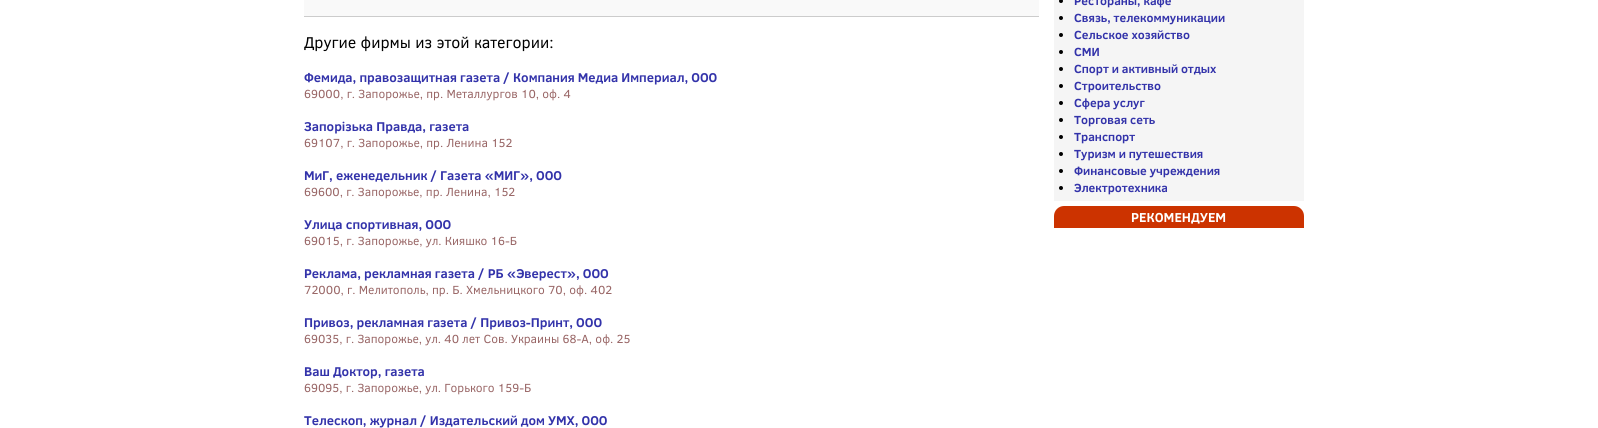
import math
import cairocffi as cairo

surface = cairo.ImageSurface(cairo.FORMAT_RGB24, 1598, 428)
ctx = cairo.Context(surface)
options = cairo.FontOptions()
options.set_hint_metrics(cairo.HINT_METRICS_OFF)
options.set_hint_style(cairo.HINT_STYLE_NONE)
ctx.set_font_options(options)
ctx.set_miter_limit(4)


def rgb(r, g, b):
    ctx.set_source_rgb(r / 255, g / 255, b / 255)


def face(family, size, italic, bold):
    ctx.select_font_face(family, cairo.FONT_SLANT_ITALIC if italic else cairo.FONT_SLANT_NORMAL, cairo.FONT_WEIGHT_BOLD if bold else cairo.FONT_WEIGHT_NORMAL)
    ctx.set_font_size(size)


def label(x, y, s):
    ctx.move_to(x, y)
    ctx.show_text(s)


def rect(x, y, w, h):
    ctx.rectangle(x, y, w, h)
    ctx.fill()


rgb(255, 255, 255)
ctx.paint()
rgb(249, 249, 249)
rect(304, 0, 735, 16)
rgb(204, 204, 204)
rect(304, 16, 735, 1)
face('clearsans', 16, 0, 0)
rgb(0, 0, 0)
label(304, 48, 'Другие фирмы из этой категории:')
face('clearsans', 13, 0, 1)
rgb(51, 51, 170)
label(304, 82, 'Фемида, правозащитная газета / Компания Медиа Империал, ООО')
face('clearsans', 12, 0, 0)
rgb(153, 102, 102)
label(304, 98, '69000, г. Запорожье, пр. Металлургов 10, оф. 4')
face('clearsans', 13, 0, 1)
rgb(51, 51, 170)
label(304, 131, 'Запорiзька Правда, газета')
face('clearsans', 12, 0, 0)
rgb(153, 102, 102)
label(304, 147, '69107, г. Запорожье, пр. Ленина 152')
face('clearsans', 13, 0, 1)
rgb(51, 51, 170)
label(304, 180, 'МиГ, еженедельник / Газета «МИГ», ООО')
face('clearsans', 12, 0, 0)
rgb(153, 102, 102)
label(304, 196, '69600, г. Запорожье, пр. Ленина, 152')
face('clearsans', 13, 0, 1)
rgb(51, 51, 170)
label(304, 229, 'Улица спортивная, ООО')
face('clearsans', 12, 0, 0)
rgb(153, 102, 102)
label(304, 245, '69015, г. Запорожье, ул. Кияшко 16-Б')
face('clearsans', 13, 0, 1)
rgb(51, 51, 170)
label(304, 278, 'Реклама, рекламная газета / РБ «Эверест», ООО')
face('clearsans', 12, 0, 0)
rgb(153, 102, 102)
label(304, 294, '72000, г. Мелитополь, пр. Б. Хмельницкого 70, оф. 402')
face('clearsans', 13, 0, 1)
rgb(51, 51, 170)
label(304, 327, 'Привоз, рекламная газета / Привоз-Принт, ООО')
face('clearsans', 12, 0, 0)
rgb(153, 102, 102)
label(304, 343, '69035, г. Запорожье, ул. 40 лет Сов. Украины 68-А, оф. 25')
face('clearsans', 13, 0, 1)
rgb(51, 51, 170)
label(304, 376, 'Ваш Доктор, газета')
face('clearsans', 12, 0, 0)
rgb(153, 102, 102)
label(304, 392, '69095, г. Запорожье, ул. Горького 159-Б')
face('clearsans', 13, 0, 1)
rgb(51, 51, 170)
label(304, 425, 'Телескоп, журнал / Издательский дом УМХ, ООО')
rgb(245, 245, 245)
rect(1054, 0, 250, 201)
rgb(0, 0, 0)
ctx.new_path()
ctx.arc(1061, 1, 2, 0, 2 * math.pi)
ctx.fill()
face('clearsans', 12, 0, 1)
rgb(51, 51, 170)
label(1074, 5, 'Рестораны, кафе')
rgb(0, 0, 0)
ctx.new_path()
ctx.arc(1061, 18, 2, 0, 2 * math.pi)
ctx.fill()
rgb(51, 51, 170)
label(1074, 22, 'Связь, телекоммуникации')
rgb(0, 0, 0)
ctx.new_path()
ctx.arc(1061, 35, 2, 0, 2 * math.pi)
ctx.fill()
rgb(51, 51, 170)
label(1074, 39, 'Сельское хозяйство')
rgb(0, 0, 0)
ctx.new_path()
ctx.arc(1061, 52, 2, 0, 2 * math.pi)
ctx.fill()
rgb(51, 51, 170)
label(1074, 56, 'СМИ')
rgb(0, 0, 0)
ctx.new_path()
ctx.arc(1061, 69, 2, 0, 2 * math.pi)
ctx.fill()
rgb(51, 51, 170)
label(1074, 73, 'Спорт и активный отдых')
rgb(0, 0, 0)
ctx.new_path()
ctx.arc(1061, 86, 2, 0, 2 * math.pi)
ctx.fill()
rgb(51, 51, 170)
label(1074, 90, 'Строительство')
rgb(0, 0, 0)
ctx.new_path()
ctx.arc(1061, 103, 2, 0, 2 * math.pi)
ctx.fill()
rgb(51, 51, 170)
label(1074, 107, 'Сфера услуг')
rgb(0, 0, 0)
ctx.new_path()
ctx.arc(1061, 120, 2, 0, 2 * math.pi)
ctx.fill()
rgb(51, 51, 170)
label(1074, 124, 'Торговая сеть')
rgb(0, 0, 0)
ctx.new_path()
ctx.arc(1061, 137, 2, 0, 2 * math.pi)
ctx.fill()
rgb(51, 51, 170)
label(1074, 141, 'Транспорт')
rgb(0, 0, 0)
ctx.new_path()
ctx.arc(1061, 154, 2, 0, 2 * math.pi)
ctx.fill()
rgb(51, 51, 170)
label(1074, 158, 'Туризм и путешествия')
rgb(0, 0, 0)
ctx.new_path()
ctx.arc(1061, 171, 2, 0, 2 * math.pi)
ctx.fill()
rgb(51, 51, 170)
label(1074, 175, 'Финансовые учреждения')
rgb(0, 0, 0)
ctx.new_path()
ctx.arc(1061, 188, 2, 0, 2 * math.pi)
ctx.fill()
rgb(51, 51, 170)
label(1074, 192, 'Электротехника')
rgb(204, 51, 0)
ctx.new_path()
ctx.move_to(1064, 206)
ctx.line_to(1294, 206)
ctx.curve_to(1299.5, 206, 1304, 210.5, 1304, 216)
ctx.line_to(1304, 228)
ctx.line_to(1054, 228)
ctx.line_to(1054, 216)
ctx.curve_to(1054, 210.5, 1058.5, 206, 1064, 206)
ctx.close_path()
ctx.fill()
face('clearsans', 13.25, 0, 1)
rgb(255, 255, 255)
label(1131, 222, 'РЕКОМЕНДУЕМ')
surface.write_to_png('render.png')
